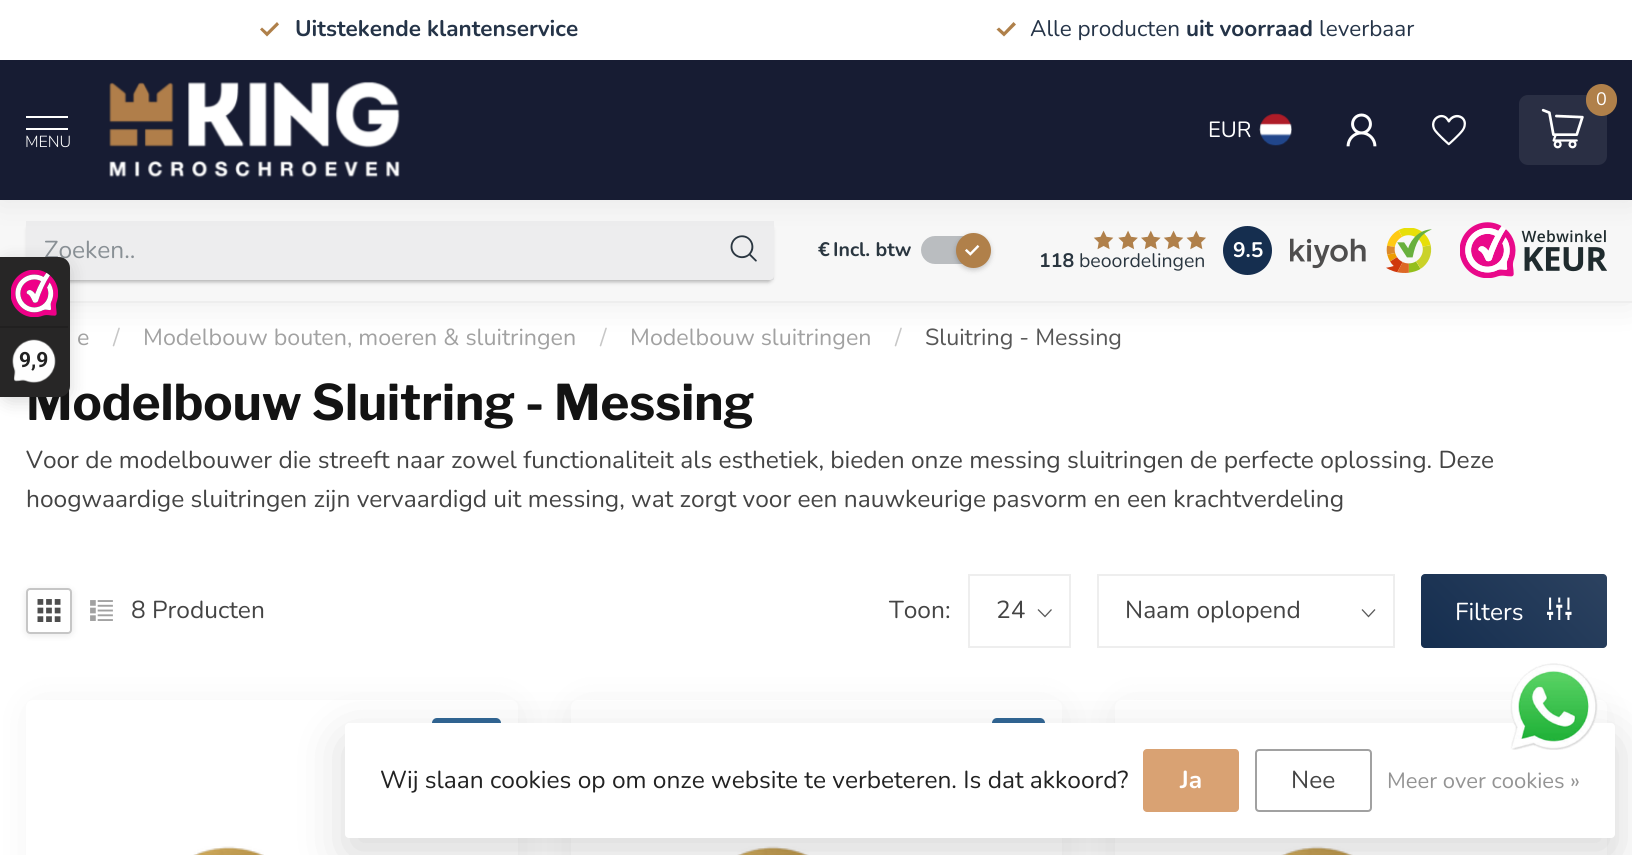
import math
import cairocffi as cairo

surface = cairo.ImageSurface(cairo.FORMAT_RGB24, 1632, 855)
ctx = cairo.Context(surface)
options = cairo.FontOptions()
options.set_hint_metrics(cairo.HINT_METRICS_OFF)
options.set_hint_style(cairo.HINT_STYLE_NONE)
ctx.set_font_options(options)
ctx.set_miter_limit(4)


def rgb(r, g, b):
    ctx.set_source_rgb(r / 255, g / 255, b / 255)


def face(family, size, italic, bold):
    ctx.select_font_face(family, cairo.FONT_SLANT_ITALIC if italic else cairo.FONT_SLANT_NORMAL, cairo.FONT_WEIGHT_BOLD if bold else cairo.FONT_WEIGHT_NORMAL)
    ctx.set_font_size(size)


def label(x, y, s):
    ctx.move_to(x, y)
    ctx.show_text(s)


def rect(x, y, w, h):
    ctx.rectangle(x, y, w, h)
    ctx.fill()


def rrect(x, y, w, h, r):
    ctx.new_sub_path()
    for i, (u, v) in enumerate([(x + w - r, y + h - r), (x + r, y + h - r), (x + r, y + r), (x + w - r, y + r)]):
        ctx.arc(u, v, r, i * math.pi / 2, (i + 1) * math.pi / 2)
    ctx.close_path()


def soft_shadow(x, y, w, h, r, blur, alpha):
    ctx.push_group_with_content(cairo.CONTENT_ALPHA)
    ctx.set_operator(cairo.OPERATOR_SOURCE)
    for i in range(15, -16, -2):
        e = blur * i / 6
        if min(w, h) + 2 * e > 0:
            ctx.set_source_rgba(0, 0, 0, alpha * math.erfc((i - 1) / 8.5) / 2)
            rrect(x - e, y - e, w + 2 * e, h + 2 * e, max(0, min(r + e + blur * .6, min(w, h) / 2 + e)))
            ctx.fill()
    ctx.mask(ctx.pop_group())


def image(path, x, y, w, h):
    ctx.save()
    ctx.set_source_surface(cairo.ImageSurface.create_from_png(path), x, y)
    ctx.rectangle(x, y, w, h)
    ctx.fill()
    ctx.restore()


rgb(255, 255, 255)
ctx.paint()
rgb(0, 0, 0)
soft_shadow(0, 200, 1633, 103, 0, 19, 0.08)
rgb(247, 247, 247)
rect(0, 200, 1632, 101)
ctx.save()
ctx.set_fill_rule(cairo.FILL_RULE_EVEN_ODD)
ctx.new_path()
ctx.move_to(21, 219)
ctx.line_to(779, 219)
ctx.line_to(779, 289)
ctx.line_to(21, 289)
ctx.close_path()
ctx.move_to(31, 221)
ctx.line_to(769, 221)
ctx.curve_to(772, 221, 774, 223, 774, 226)
ctx.line_to(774, 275)
ctx.curve_to(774, 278, 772, 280, 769, 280)
ctx.line_to(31, 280)
ctx.curve_to(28, 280, 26, 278, 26, 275)
ctx.line_to(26, 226)
ctx.curve_to(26, 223, 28, 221, 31, 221)
ctx.close_path()
ctx.clip()
rgb(155, 155, 155)
soft_shadow(28, 226, 744, 56, 4, 2, 0.75)
ctx.restore()
ctx.set_source_rgba(0.165, 0.212, 0.251, 0.05)
rect(26, 221, 748, 59)
image('image5.png', 730, 235, 27, 27)
rgb(186, 189, 192)
rrect(921, 236, 66, 28, 14)
ctx.fill()
rgb(0, 0, 0)
soft_shadow(956, 235, 35, 35, 17.5, 2.5, 0.2)
rgb(176, 128, 74)
ctx.arc(973.5, 250.5, 17.5, 0, 2 * math.pi)
ctx.fill()
image('image6.png', 965, 245, 15, 11)
rgb(21, 46, 79)
ctx.arc(1247.5, 250.5, 24.5, 0, 2 * math.pi)
ctx.fill()
image('image7.png', 1093, 230, 21, 20)
image('image8.png', 1118, 230, 20, 20)
image('image9.png', 1141, 230, 20, 20)
image('image7.png', 1163, 230, 21, 20)
image('image10.png', 1186, 230, 20, 20)
image('image11.png', 1290, 228, 142, 45)
image('image12.png', 1460, 222, 147, 56)
rgb(0, 0, 0)
soft_shadow(0, 0, 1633, 200, 0, 17.5, 0.07)
rgb(23, 28, 51)
rect(0, 60, 1632, 140)
rgb(255, 255, 255)
rect(0, 0, 1632, 60)
rgb(175, 128, 74)
ctx.new_path()
ctx.move_to(267, 36.5)
ctx.line_to(260, 29.5)
ctx.line_to(262, 27.5)
ctx.line_to(267, 32)
ctx.line_to(277, 22)
ctx.line_to(279, 24.5)
ctx.close_path()
ctx.fill()
face('Nunito', 22.5, 0, 1)
rgb(37, 52, 72)
label(295, 36, 'Uitstekende klantenservice')
rgb(175, 128, 74)
ctx.new_path()
ctx.move_to(1004, 36.5)
ctx.line_to(996.5, 29.5)
ctx.line_to(999, 27.5)
ctx.line_to(1004, 32)
ctx.line_to(1013.5, 22)
ctx.line_to(1016, 24.5)
ctx.close_path()
ctx.fill()
face('Nunito', 22.5, 0, 0)
rgb(37, 52, 72)
label(1030, 36, 'Alle producten')
face('Nunito', 22.5, 0, 1)
label(1186, 36, 'uit voorraad')
face('Nunito', 22.5, 0, 0)
label(1319, 36, 'leverbaar')
rgb(42, 47, 68)
rrect(1519, 95, 88, 70, 9)
ctx.fill()
rgb(176, 128, 74)
rrect(1586, 84, 31, 32, 15.5)
ctx.fill()
face('Nunito', 18, 0, 0)
rgb(255, 255, 255)
label(1596, 105, '0')
image('image0.png', 1541, 108, 43, 41)
face('Nunito', 22, 0, 0)
label(1208, 137, 'EUR')
image('image1.png', 1259, 113, 33, 33)
image('image2.png', 1346, 113, 31, 34)
image('image3.png', 1432, 114, 34, 32)
rect(26, 116, 42, 2)
rect(26, 128, 42, 2)
face('Nunito Light', 16, 0, 0)
label(25, 147, 'MENU')
image('image4.png', 109, 81, 291, 97)
rgb(238, 238, 238)
rect(70, 301, 1562, 2)
face('Nunito', 24.5, 0, 0)
rgb(137, 144, 149)
label(44, 258, 'Zoeken..')
face('Nunito', 19.5, 0, 1)
rgb(42, 54, 64)
label(818, 256, '€')
label(833, 256, 'Incl. btw')
face('Nunito', 21, 0, 1)
rgb(255, 255, 255)
label(1233, 257, '9.5')
face('Nunito', 19.5, 0, 1)
rgb(42, 54, 64)
label(1039, 267, '118')
face('Nunito', 19.5, 0, 0)
label(1079, 267, 'beoordelingen')
face('Nunito', 23.25, 0, 0)
rgb(162, 162, 162)
label(77, 345, 'e')
rgb(199, 199, 199)
label(113, 345, '/')
rgb(162, 162, 162)
label(143, 345, 'Modelbouw bouten, moeren & sluitringen')
rgb(199, 199, 199)
label(600, 345, '/')
rgb(162, 162, 162)
label(630, 345, 'Modelbouw sluitringen')
rgb(199, 199, 199)
label(895, 345, '/')
rgb(87, 87, 87)
label(925, 345, 'Sluitring - Messing')
rgb(0, 0, 0)
soft_shadow(0, 261, 70, 140, 11, 9, 0.15)
face('Libre Franklin', 49, 0, 1)
rgb(19, 19, 19)
label(26, 420, 'Modelbouw Sluitring - Messing')
rgb(39, 38, 38)
ctx.new_path()
ctx.move_to(0, 257)
ctx.line_to(59, 257)
ctx.curve_to(65, 257, 70, 262, 70, 268)
ctx.line_to(70, 386)
ctx.curve_to(70, 392, 65, 397, 59, 397)
ctx.line_to(0, 397)
ctx.close_path()
ctx.fill()
image('image13.png', 11, 270, 47, 47)
rgb(33, 32, 32)
rect(0, 326, 68, 2)
image('image14.png', 12, 339, 44, 44)
face('Roboto', 21, 0, 1)
rgb(34, 34, 34)
label(19, 367, '9,9')
face('Nunito', 24.5, 0, 0)
rgb(68, 68, 68)
label(26, 468, 'Voor de modelbouwer die streeft naar zowel functionaliteit als esthetiek, bieden onze messing sluitringen de perfecte oplossing. Deze')
label(26, 507, 'hoogwaardige sluitringen zijn vervaardigd uit messing, wat zorgt voor een nauwkeurige pasvorm en een krachtverdeling')
ctx.save()
ctx.set_fill_rule(cairo.FILL_RULE_EVEN_ODD)
ctx.new_path()
ctx.move_to(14, 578)
ctx.line_to(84, 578)
ctx.line_to(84, 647)
ctx.line_to(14, 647)
ctx.close_path()
ctx.move_to(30, 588)
ctx.line_to(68, 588)
ctx.curve_to(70, 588, 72, 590, 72, 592)
ctx.line_to(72, 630)
ctx.curve_to(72, 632, 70, 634, 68, 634)
ctx.line_to(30, 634)
ctx.curve_to(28, 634, 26, 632, 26, 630)
ctx.line_to(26, 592)
ctx.curve_to(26, 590, 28, 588, 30, 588)
ctx.close_path()
ctx.clip()
rgb(0, 0, 0)
soft_shadow(26, 590, 46, 45, 4, 3.5, 0.1)
ctx.restore()
rrect(27, 589, 44, 44, 3)
rgb(198, 198, 198)
ctx.stroke()
image('image15.png', 37, 599, 24, 23)
image('image16.png', 90, 600, 23, 21)
rgb(68, 68, 68)
label(131, 618, '8 Producten')
label(889, 618, 'Toon:')
ctx.new_path()
ctx.move_to(1051.5, 609.5)
ctx.line_to(1045, 616.5)
ctx.line_to(1038, 609.5)
rgb(89, 89, 89)
ctx.set_line_width(1.3)
ctx.stroke()
ctx.rectangle(969, 575, 101, 72)
rgb(238, 238, 238)
ctx.set_line_width(2)
ctx.stroke()
rgb(68, 68, 68)
label(996, 618, '24')
ctx.new_path()
ctx.move_to(1375, 609.5)
ctx.line_to(1368.5, 616.5)
ctx.line_to(1362, 609.5)
rgb(89, 89, 89)
ctx.set_line_width(1.3)
ctx.stroke()
ctx.rectangle(1098, 575, 296, 72)
rgb(238, 238, 238)
ctx.set_line_width(2)
ctx.stroke()
rgb(68, 68, 68)
label(1125, 618, 'Naam oplopend')
gradient = cairo.LinearGradient(1449, 676, 1579, 546)
gradient.add_color_stop_rgba(0, 0.082, 0.18, 0.31, 1)
gradient.add_color_stop_rgba(1, 0.173, 0.259, 0.376, 1)
ctx.set_source(gradient)
rrect(1421, 574, 186, 74, 4)
ctx.fill()
rgb(255, 255, 255)
label(1455, 620, 'Filters')
image('image17.png', 1547, 597, 25, 23)
rgb(0, 0, 0)
soft_shadow(37, 711, 471, 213, 0, 23, 0.07)
rgb(255, 255, 255)
ctx.new_path()
ctx.move_to(33, 700)
ctx.line_to(511, 700)
ctx.curve_to(515, 700, 518, 703, 518, 707)
ctx.line_to(518, 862)
ctx.line_to(26, 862)
ctx.line_to(26, 707)
ctx.curve_to(26, 703, 29, 700, 33, 700)
ctx.close_path()
ctx.fill()
image('image18.png', 193, 846, 71, 9)
rgb(50, 103, 149)
rrect(432, 718, 69, 42, 5)
ctx.fill()
rgb(0, 0, 0)
soft_shadow(581, 711, 471, 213, 0, 23, 0.07)
rgb(255, 255, 255)
ctx.new_path()
ctx.move_to(578, 700)
ctx.line_to(1055, 700)
ctx.curve_to(1059, 700, 1062, 703, 1062, 707)
ctx.line_to(1062, 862)
ctx.line_to(571, 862)
ctx.line_to(571, 707)
ctx.curve_to(571, 703, 574, 700, 578, 700)
ctx.close_path()
ctx.fill()
image('image19.png', 737, 846, 72, 9)
rgb(50, 103, 149)
rrect(992, 718, 53, 42, 5)
ctx.fill()
rgb(0, 0, 0)
soft_shadow(1125, 711, 471, 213, 0, 23, 0.07)
rgb(255, 255, 255)
ctx.new_path()
ctx.move_to(1122, 700)
ctx.line_to(1600, 700)
ctx.curve_to(1604, 700, 1607, 703, 1607, 707)
ctx.line_to(1607, 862)
ctx.line_to(1115, 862)
ctx.line_to(1115, 707)
ctx.curve_to(1115, 703, 1118, 700, 1122, 700)
ctx.close_path()
ctx.fill()
image('image20.png', 1281, 846, 72, 9)
rgb(0, 0, 0)
soft_shadow(345, 740, 1270, 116, 4, 26, 0.15)
rgb(255, 255, 255)
rrect(345, 723, 1270, 115, 4)
ctx.fill()
image('image21.png', 1510, 663, 88, 87)
rgb(34, 34, 34)
label(380, 788, 'Wij slaan cookies op om onze website te verbeteren. Is dat akkoord?')
rgb(217, 162, 115)
rrect(1143, 749, 96, 63, 4)
ctx.fill()
face('Nunito', 24.5, 0, 1)
rgb(255, 255, 255)
label(1180, 788, 'Ja')
rrect(1256, 750, 115, 61, 3)
rgb(161, 161, 161)
ctx.stroke()
face('Nunito', 24.5, 0, 0)
rgb(68, 68, 68)
label(1291, 788, 'Nee')
face('Nunito', 22, 0, 0)
rgb(148, 148, 148)
label(1387, 788, 'Meer over cookies »')
surface.write_to_png('render.png')
